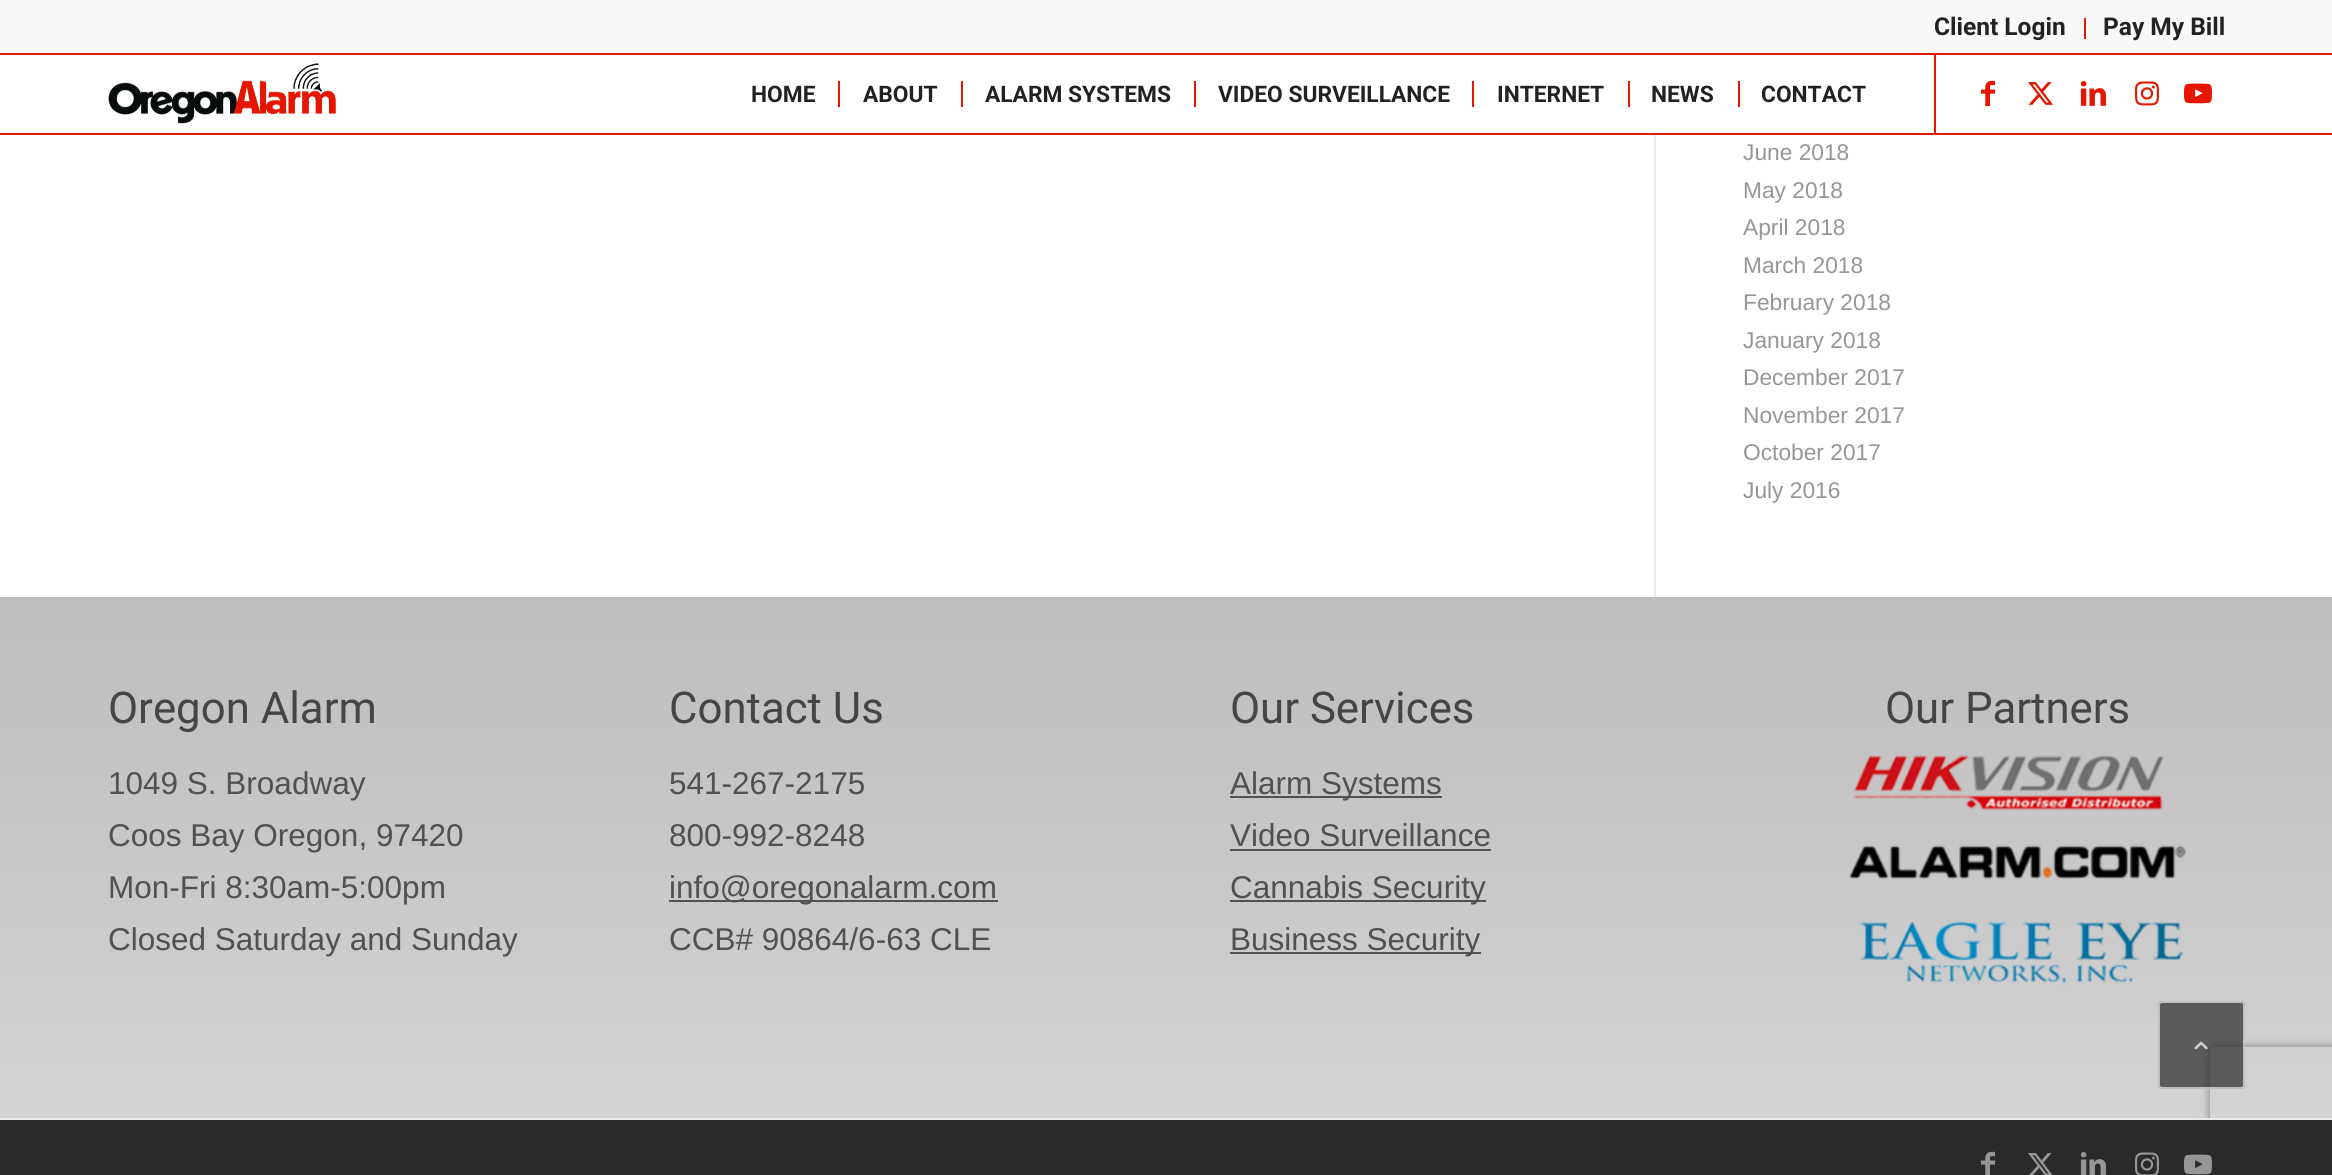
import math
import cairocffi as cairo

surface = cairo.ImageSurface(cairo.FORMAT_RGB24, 2332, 1175)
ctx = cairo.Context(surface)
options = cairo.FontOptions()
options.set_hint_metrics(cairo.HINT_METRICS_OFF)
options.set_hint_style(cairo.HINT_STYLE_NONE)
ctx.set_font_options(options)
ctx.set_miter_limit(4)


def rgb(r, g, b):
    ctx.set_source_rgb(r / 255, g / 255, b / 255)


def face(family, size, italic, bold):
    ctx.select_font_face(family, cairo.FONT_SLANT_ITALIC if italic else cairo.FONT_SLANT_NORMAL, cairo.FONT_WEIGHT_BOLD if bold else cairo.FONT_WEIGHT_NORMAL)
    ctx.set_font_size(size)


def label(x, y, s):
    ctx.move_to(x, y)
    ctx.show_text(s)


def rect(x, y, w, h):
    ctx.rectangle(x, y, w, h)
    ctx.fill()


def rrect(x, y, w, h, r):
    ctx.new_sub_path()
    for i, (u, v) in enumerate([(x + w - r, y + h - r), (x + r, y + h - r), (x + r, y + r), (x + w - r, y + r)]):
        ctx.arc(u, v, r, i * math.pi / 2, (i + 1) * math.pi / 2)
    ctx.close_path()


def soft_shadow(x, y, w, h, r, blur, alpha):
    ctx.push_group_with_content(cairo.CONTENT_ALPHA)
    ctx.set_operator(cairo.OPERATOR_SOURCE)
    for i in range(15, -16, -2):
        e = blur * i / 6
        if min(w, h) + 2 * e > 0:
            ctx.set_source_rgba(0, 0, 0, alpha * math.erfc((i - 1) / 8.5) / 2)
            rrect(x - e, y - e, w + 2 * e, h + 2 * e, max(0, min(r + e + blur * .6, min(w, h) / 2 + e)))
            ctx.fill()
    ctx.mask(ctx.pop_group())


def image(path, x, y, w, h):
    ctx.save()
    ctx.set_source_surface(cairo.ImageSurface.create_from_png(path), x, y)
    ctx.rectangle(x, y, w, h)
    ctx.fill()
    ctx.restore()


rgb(255, 255, 255)
ctx.paint()
rgb(248, 248, 248)
rect(0, 0, 2332, 53)
rgb(229, 23, 0)
rect(1934, 54, 2, 79)
rect(0, 53, 2332, 2)
rect(2084, 18, 2, 21)
face('Roboto', 24.5, 0, 1)
rgb(36, 33, 36)
label(1934, 35, 'Client Login')
label(2103, 35, 'Pay My Bill')
rgb(229, 23, 0)
rect(0, 133, 2332, 2)
image('image0.png', 108, 63, 228, 61)
face('Roboto', 22.75, 0, 1)
rgb(36, 33, 36)
label(751, 102, 'HOME')
label(863, 102, 'ABOUT')
rgb(229, 23, 0)
rect(838, 81, 2, 26)
rgb(36, 33, 36)
label(985, 102, 'ALARM SYSTEMS')
rgb(229, 23, 0)
rect(961, 81, 2, 26)
rgb(36, 33, 36)
label(1218, 102, 'VIDEO SURVEILLANCE')
rgb(229, 23, 0)
rect(1194, 81, 2, 26)
rgb(36, 33, 36)
label(1497, 102, 'INTERNET')
rgb(229, 23, 0)
rect(1472, 81, 2, 26)
rgb(36, 33, 36)
label(1651, 102, 'NEWS')
rgb(229, 23, 0)
rect(1628, 81, 2, 26)
rgb(36, 33, 36)
label(1761, 102, 'CONTACT')
rgb(229, 23, 0)
rect(1738, 81, 2, 26)
image('image1.png', 1981, 80, 14, 27)
image('image2.png', 2028, 82, 25, 23)
image('image3.png', 2080, 81, 26, 25)
image('image4.png', 2135, 81, 24, 25)
image('image5.png', 2184, 83, 28, 21)
rgb(235, 235, 235)
rect(1654, 135, 2, 462)
face('Liberation Sans', 22.75, 0, 0)
rgb(150, 150, 150)
label(1743, 160, 'June 2018')
label(1743, 198, 'May 2018')
label(1743, 235, 'April 2018')
label(1743, 273, 'March 2018')
label(1743, 310, 'February 2018')
label(1743, 348, 'January 2018')
label(1743, 385, 'December 2017')
label(1743, 423, 'November 2017')
label(1743, 460, 'October 2017')
label(1743, 498, 'July 2016')
gradient = cairo.LinearGradient(1166, 597, 1166, 1118)
gradient.add_color_stop_rgba(0, 0.749, 0.737, 0.737, 1)
gradient.add_color_stop_rgba(1, 0.827, 0.827, 0.831, 1)
ctx.set_source(gradient)
rect(0, 597, 2332, 521)
face('Roboto', 43.75, 0, 0)
rgb(69, 69, 69)
label(108, 723, 'Oregon Alarm')
face('Liberation Sans', 31.5, 0, 0)
rgb(81, 81, 81)
label(108, 794, '1049 S. Broadway')
label(108, 846, 'Coos Bay Oregon, 97420')
label(108, 898, 'Mon-Fri 8:30am-5:00pm')
label(108, 950, 'Closed Saturday and Sunday')
face('Roboto', 43.75, 0, 0)
rgb(69, 69, 69)
label(669, 723, 'Contact Us')
face('Liberation Sans', 31.5, 0, 0)
rgb(81, 81, 81)
label(669, 794, '541-267-2175')
label(669, 846, '800-992-8248')
rect(669, 900, 329, 2)
label(669, 898, 'info@oregonalarm.com')
label(669, 950, 'CCB# 90864/6-63 CLE')
face('Roboto', 43.75, 0, 0)
rgb(69, 69, 69)
label(1230, 723, 'Our Services')
rgb(81, 81, 81)
rect(1230, 796, 212, 2)
face('Liberation Sans', 31.5, 0, 0)
label(1230, 794, 'Alarm Systems')
label(1230, 846, 'Video Surveillance')
rect(1230, 849, 261, 2)
rect(1230, 900, 256, 2)
label(1230, 898, 'Cannabis Security')
rect(1230, 952, 251, 2)
label(1230, 950, 'Business Security')
face('Roboto', 43.75, 0, 0)
rgb(69, 69, 69)
label(1885, 723, 'Our Partners')
image('image6.png', 1849, 755, 337, 230)
ctx.save()
ctx.set_fill_rule(cairo.FILL_RULE_EVEN_ODD)
ctx.new_path()
ctx.move_to(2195, 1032)
ctx.line_to(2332, 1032)
ctx.line_to(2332, 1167)
ctx.line_to(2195, 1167)
ctx.close_path()
ctx.move_to(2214, 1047)
ctx.line_to(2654, 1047)
ctx.curve_to(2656, 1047, 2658, 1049, 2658, 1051)
ctx.line_to(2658, 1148)
ctx.curve_to(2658, 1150, 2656, 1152, 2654, 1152)
ctx.line_to(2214, 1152)
ctx.curve_to(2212, 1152, 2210, 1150, 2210, 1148)
ctx.line_to(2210, 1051)
ctx.curve_to(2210, 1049, 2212, 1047, 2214, 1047)
ctx.close_path()
ctx.clip()
rgb(128, 128, 128)
soft_shadow(2210, 1047, 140, 105, 4, 4.5, 1)
ctx.restore()
rgb(40, 42, 43)
rect(0, 1120, 2332, 55)
rgb(235, 235, 235)
rect(0, 1118, 2332, 2)
image('image7.png', 1981, 1151, 14, 24)
image('image8.png', 2028, 1153, 25, 22)
image('image9.png', 2080, 1152, 26, 23)
image('image10.png', 2135, 1152, 24, 23)
image('image11.png', 2184, 1154, 28, 21)
ctx.set_source_rgba(0.157, 0.165, 0.169, 0.7)
rrect(2158, 1001, 87, 88, 4)
ctx.fill()
rrect(2159, 1002, 85, 86, 3)
ctx.set_source_rgba(0.922, 0.922, 0.922, 0.7)
ctx.stroke()
image('image12.png', 2194, 1041, 14, 9)
surface.write_to_png('render.png')
